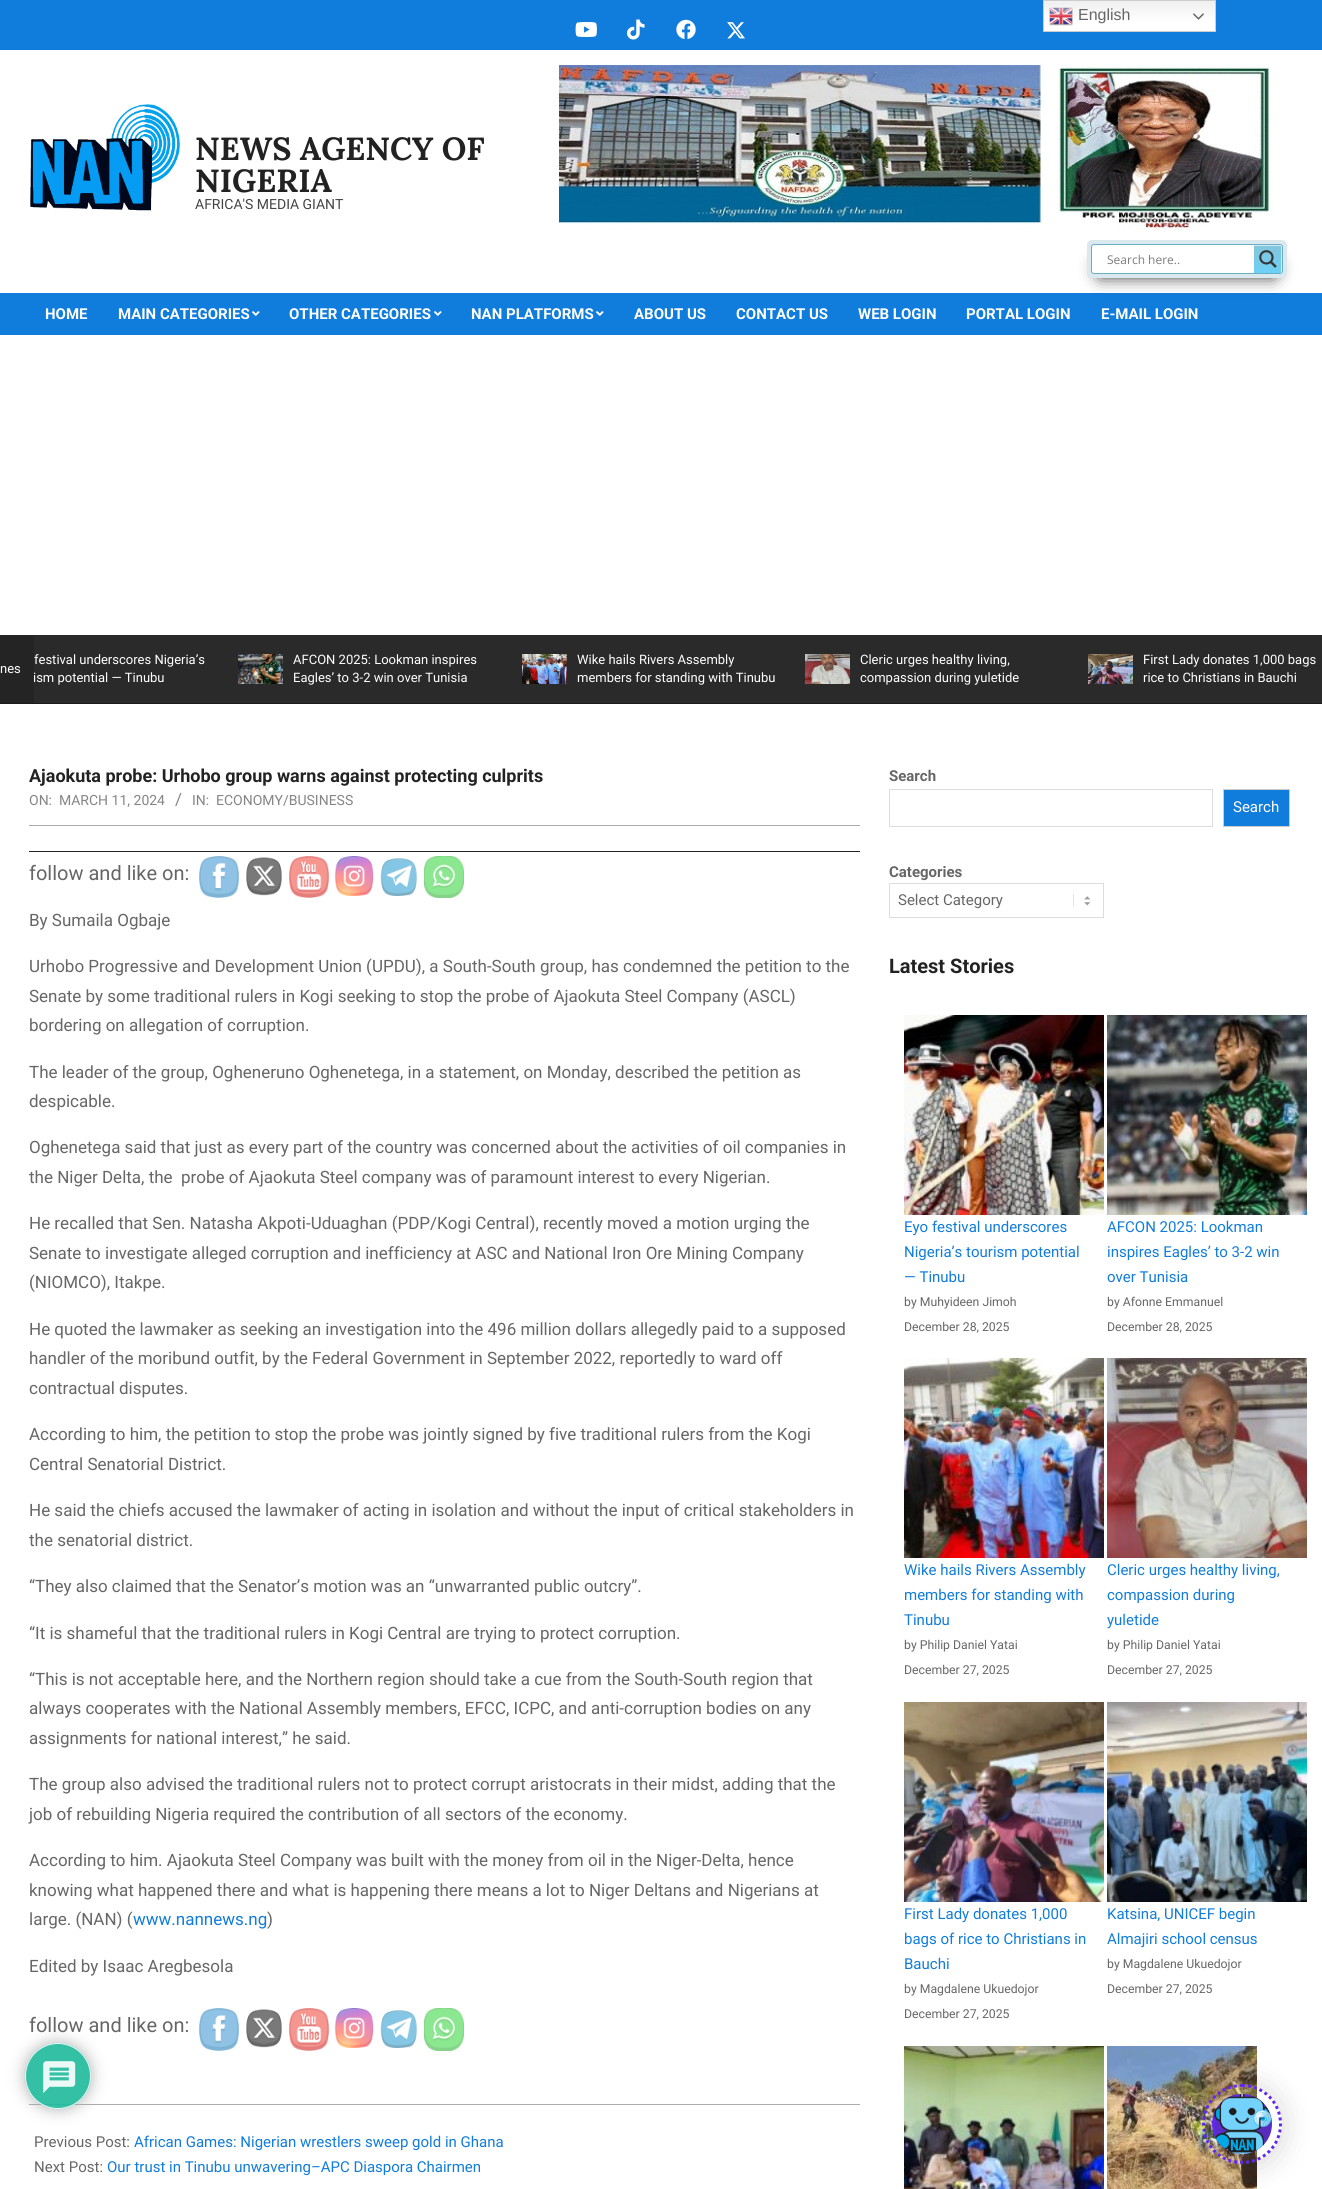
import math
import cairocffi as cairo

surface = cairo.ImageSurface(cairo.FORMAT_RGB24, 1322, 2189)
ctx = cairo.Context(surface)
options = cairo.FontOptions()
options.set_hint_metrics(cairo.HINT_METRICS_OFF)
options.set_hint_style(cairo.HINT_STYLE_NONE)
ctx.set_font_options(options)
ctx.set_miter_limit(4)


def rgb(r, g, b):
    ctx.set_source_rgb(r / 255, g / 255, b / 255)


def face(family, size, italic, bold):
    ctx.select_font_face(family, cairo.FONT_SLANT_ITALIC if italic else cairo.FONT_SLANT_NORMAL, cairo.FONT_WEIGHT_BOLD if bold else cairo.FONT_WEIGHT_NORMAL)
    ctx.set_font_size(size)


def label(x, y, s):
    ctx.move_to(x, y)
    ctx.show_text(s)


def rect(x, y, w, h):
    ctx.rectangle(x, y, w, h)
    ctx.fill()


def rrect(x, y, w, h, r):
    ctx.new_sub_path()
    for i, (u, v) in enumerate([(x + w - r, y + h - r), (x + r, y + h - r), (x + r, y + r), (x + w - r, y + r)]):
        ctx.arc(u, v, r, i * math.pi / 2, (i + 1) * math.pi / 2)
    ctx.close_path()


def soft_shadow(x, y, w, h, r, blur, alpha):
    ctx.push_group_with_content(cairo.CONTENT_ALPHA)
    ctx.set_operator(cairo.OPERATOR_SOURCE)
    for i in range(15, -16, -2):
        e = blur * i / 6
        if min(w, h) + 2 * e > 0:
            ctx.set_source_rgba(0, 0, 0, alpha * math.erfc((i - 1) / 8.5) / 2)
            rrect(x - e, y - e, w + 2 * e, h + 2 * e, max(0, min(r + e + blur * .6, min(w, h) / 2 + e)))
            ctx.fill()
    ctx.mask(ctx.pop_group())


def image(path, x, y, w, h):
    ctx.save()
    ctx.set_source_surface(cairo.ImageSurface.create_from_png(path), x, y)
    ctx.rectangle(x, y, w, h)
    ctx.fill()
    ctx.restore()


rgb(255, 255, 255)
ctx.paint()
rgb(16, 124, 219)
rect(0, 0, 1322, 50)
image('image0.png', 575, 22, 22, 15)
image('image1.png', 627, 19, 18, 21)
image('image2.png', 676, 19, 20, 20)
image('image3.png', 727, 22, 18, 17)
gradient = cairo.LinearGradient(1130, 0, 1130, 32)
gradient.add_color_stop_rgba(0, 0.937, 0.937, 0.937, 1)
gradient.add_color_stop_rgba(0.7, 1, 1, 1, 1)
ctx.set_source(gradient)
rect(1044, 1, 171, 30)
ctx.rectangle(1043.5, 0.5, 172, 31)
rgb(204, 204, 204)
ctx.set_line_width(1)
ctx.stroke()
image('image4.png', 1049, 7, 24, 19)
face('Liberation Sans', 16, 0, 0)
rgb(102, 102, 102)
label(1078, 20, 'English')
image('image5.png', 1193, 13, 11, 7)
image('image6.png', 30, 104, 150, 107)
face('Lora', 32, 0, 1)
rgb(34, 34, 34)
label(195, 160, 'NEWS AGENCY OF')
label(195, 192, 'NIGERIA')
face('Roboto', 14, 0, 0)
rgb(68, 68, 68)
label(195, 209, 'AFRICA\'S MEDIA GIANT')
image('image7.png', 559, 65, 715, 165)
rgb(16, 124, 219)
rect(0, 293, 1322, 42)
rgb(0, 0, 0)
soft_shadow(1100, 263, 174, 12, 0, 9, 1)
rgb(219, 233, 238)
rrect(1087, 240, 200, 38, 5)
ctx.fill()
rgb(255, 255, 255)
rrect(1091.5, 244.5, 191, 29, 2.5)
ctx.fill_preserve()
rgb(104, 174, 199)
ctx.stroke()
face('Open Sans', 12, 0, 0)
rgb(125, 125, 125)
label(1107, 264, 'Search here..')
gradient = cairo.LinearGradient(1268, 245, 1268, 273)
gradient.add_color_stop_rgba(0, 0.518, 0.773, 0.863, 1)
gradient.add_color_stop_rgba(1, 0.424, 0.82, 0.961, 1)
ctx.set_source(gradient)
ctx.new_path()
ctx.move_to(1254, 245)
ctx.line_to(1280, 245)
ctx.curve_to(1281, 245, 1282, 246, 1282, 247)
ctx.line_to(1282, 271)
ctx.curve_to(1282, 272, 1281, 273, 1280, 273)
ctx.line_to(1254, 273)
ctx.close_path()
ctx.fill()
ctx.save()
ctx.rectangle(1254, 245, 28, 28)
ctx.clip()
ctx.set_source_rgba(1, 1, 1, 0.61)
ctx.new_path()
ctx.move_to(1253, 246)
ctx.line_to(1253, 273)
ctx.line_to(1155, 273)
ctx.line_to(1155, 245)
ctx.line_to(1281, 245)
ctx.line_to(1282, 247)
ctx.line_to(1282, 272)
ctx.line_to(1281, 273)
ctx.line_to(1281, 246)
ctx.close_path()
ctx.fill()
ctx.restore()
image('image8.png', 1259, 250, 18, 18)
face('Roboto', 15, 0, 1)
rgb(255, 255, 255)
label(45, 319, 'HOME')
label(118, 319, 'MAIN CATEGORIES')
image('image9.png', 252, 311, 8, 5)
label(289, 319, 'OTHER CATEGORIES')
image('image9.png', 434, 311, 8, 5)
label(471, 319, 'NAN PLATFORMS')
image('image9.png', 596, 311, 8, 5)
label(634, 319, 'ABOUT US')
label(736, 319, 'CONTACT US')
label(858, 319, 'WEB LOGIN')
label(966, 319, 'PORTAL LOGIN')
label(1101, 319, 'E-MAIL LOGIN')
rgb(42, 42, 42)
rect(34, 635, 1288, 68)
rgb(28, 28, 28)
rect(0, 703, 1322, 1)
rgb(36, 36, 36)
rect(0, 635, 34, 68)
face('Roboto', 13, 0, 0)
rgb(255, 255, 255)
label(0, 673, 'nes')
label(34, 664, 'festival underscores Nigeria’s')
label(33, 682, 'ism potential — Tinubu')
image('image10.png', 238, 654, 45, 30)
label(293, 664, 'AFCON 2025: Lookman inspires')
label(293, 682, 'Eagles’ to 3-2 win over Tunisia')
image('image11.png', 522, 654, 45, 30)
label(577, 664, 'Wike hails Rivers Assembly')
label(577, 682, 'members for standing with Tinubu')
image('image12.png', 805, 654, 45, 30)
label(860, 664, 'Cleric urges healthy living,')
label(860, 682, 'compassion during yuletide')
image('image13.png', 1088, 654, 45, 30)
label(1143, 664, 'First Lady donates 1,000 bags')
label(1143, 682, 'rice to Christians in Bauchi')
rgb(171, 171, 171)
rect(29, 825, 831, 1)
face('Roboto', 18, 0, 1)
rgb(34, 34, 34)
label(29, 782, 'Ajaokuta probe: Urhobo group warns against protecting culprits')
face('Roboto', 14, 0, 0)
rgb(133, 133, 133)
label(29, 805, 'ON:')
label(59, 805, 'MARCH 11, 2024')
face('Roboto', 17, 0, 0)
label(175, 805, '/')
face('Roboto', 14, 0, 0)
label(192, 805, 'IN:')
label(216, 805, 'ECONOMY/BUSINESS')
rgb(171, 171, 171)
rect(29, 2104, 831, 1)
rgb(34, 34, 34)
rect(29, 851, 831, 1)
face('Roboto', 20, 0, 0)
rgb(102, 102, 102)
label(29, 880, 'follow and like on:')
image('image14.png', 199, 856, 40, 42)
image('image15.png', 246, 857, 36, 39)
image('image16.png', 289, 856, 40, 42)
image('image17.png', 334, 856, 40, 40)
image('image18.png', 380, 858, 37, 38)
image('image19.png', 424, 856, 40, 42)
face('Roboto', 17, 0, 0)
label(29, 926, 'By Sumaila Ogbaje')
label(29, 972, 'Urhobo Progressive and Development Union (UPDU), a South-South group, has condemned the petition to the')
label(29, 1002, 'Senate by some traditional rulers in Kogi seeking to stop the probe of Ajaokuta Steel Company (ASCL)')
label(29, 1031, 'bordering on allegation of corruption.')
label(29, 1078, 'The leader of the group, Ogheneruno Oghenetega, in a statement, on Monday, described the petition as')
label(29, 1107, 'despicable.')
label(29, 1153, 'Oghenetega said that just as every part of the country was concerned about the activities of oil companies in')
label(29, 1183, 'the Niger Delta, the  probe of Ajaokuta Steel company was of paramount interest to every Nigerian.')
label(29, 1229, 'He recalled that Sen. Natasha Akpoti-Uduaghan (PDP/Kogi Central), recently moved a motion urging the')
label(29, 1259, 'Senate to investigate alleged corruption and inefficiency at ASC and National Iron Ore Mining Company')
label(29, 1288, '(NIOMCO), Itakpe.')
label(29, 1335, 'He quoted the lawmaker as seeking an investigation into the 496 million dollars allegedly paid to a supposed')
label(29, 1364, 'handler of the moribund outfit, by the Federal Government in September 2022, reportedly to ward off')
label(29, 1394, 'contractual disputes.')
label(29, 1440, 'According to him, the petition to stop the probe was jointly signed by five traditional rulers from the Kogi')
label(29, 1470, 'Central Senatorial District.')
label(29, 1516, 'He said the chiefs accused the lawmaker of acting in isolation and without the input of critical stakeholders in')
label(29, 1546, 'the senatorial district.')
label(29, 1592, '“They also claimed that the Senator’s motion was an “unwarranted public outcry”.')
label(29, 1639, '“It is shameful that the traditional rulers in Kogi Central are trying to protect corruption.')
label(29, 1685, '“This is not acceptable here, and the Northern region should take a cue from the South-South region that')
label(29, 1714, 'always cooperates with the National Assembly members, EFCC, ICPC, and anti-corruption bodies on any')
label(29, 1744, 'assignments for national interest,” he said.')
label(29, 1790, 'The group also advised the traditional rulers not to protect corrupt aristocrats in their midst, adding that the')
label(29, 1820, 'job of rebuilding Nigeria required the contribution of all sectors of the economy.')
label(29, 1866, 'According to him. Ajaokuta Steel Company was built with the money from oil in the Niger-Delta, hence')
label(29, 1896, 'knowing what happened there and what is happening there means a lot to Niger Deltans and Nigerians at')
label(29, 1925, 'large. (NAN) (')
rgb(16, 124, 219)
label(133, 1925, 'www.nannews.ng')
rgb(102, 102, 102)
label(267, 1925, ')')
label(29, 1972, 'Edited by Isaac Aregbesola')
face('Roboto', 20, 0, 0)
label(29, 2032, 'follow and like on:')
image('image20.png', 199, 2008, 40, 43)
image('image15.png', 246, 2009, 36, 39)
image('image21.png', 289, 2008, 40, 43)
image('image17.png', 334, 2008, 40, 40)
image('image18.png', 380, 2010, 37, 38)
image('image22.png', 424, 2008, 40, 43)
face('Roboto', 15, 0, 0)
label(34, 2147, 'Previous Post:')
rgb(16, 124, 219)
label(134, 2147, 'African Games: Nigerian wrestlers sweep gold in Ghana')
rgb(102, 102, 102)
label(34, 2172, 'Next Post:')
rgb(16, 124, 219)
label(107, 2172, 'Our trust in Tinubu unwavering–APC Diaspora Chairmen')
face('Roboto', 15, 0, 1)
rgb(102, 102, 102)
label(889, 781, 'Search')
ctx.rectangle(889.5, 789.5, 323, 37)
rgb(221, 221, 221)
ctx.stroke()
rgb(16, 124, 219)
ctx.rectangle(1223.5, 789.5, 66, 37)
ctx.fill_preserve()
rgb(204, 204, 204)
ctx.stroke()
face('Roboto', 15, 0, 0)
rgb(255, 255, 255)
label(1233, 812, 'Search')
face('Roboto', 15, 0, 1)
rgb(102, 102, 102)
label(889, 877, 'Categories')
image('image23.png', 1073, 894, 18, 13)
ctx.rectangle(889.5, 883.5, 214, 34)
rgb(221, 221, 221)
ctx.stroke()
face('Roboto', 15, 0, 0)
rgb(102, 102, 102)
label(898, 905, 'Select Category')
face('Roboto', 20, 0, 1)
rgb(34, 34, 34)
label(889, 973, 'Latest Stories')
image('image24.png', 904, 1015, 200, 200)
face('Roboto', 15, 0, 0)
rgb(16, 124, 219)
label(904, 1232, 'Eyo festival underscores')
label(904, 1257, 'Nigeria’s tourism potential')
label(904, 1282, '— Tinubu')
face('Roboto', 12.25, 0, 0)
rgb(102, 102, 102)
label(904, 1306, 'by Muhyideen Jimoh')
label(904, 1331, 'December 28, 2025')
image('image25.png', 1107, 1015, 200, 200)
face('Roboto', 15, 0, 0)
rgb(16, 124, 219)
label(1107, 1232, 'AFCON 2025: Lookman')
label(1107, 1257, 'inspires Eagles’ to 3-2 win')
label(1107, 1282, 'over Tunisia')
face('Roboto', 12.25, 0, 0)
rgb(102, 102, 102)
label(1107, 1306, 'by Afonne Emmanuel')
label(1107, 1331, 'December 28, 2025')
image('image26.png', 904, 1358, 200, 200)
face('Roboto', 15, 0, 0)
rgb(16, 124, 219)
label(904, 1575, 'Wike hails Rivers Assembly')
label(904, 1600, 'members for standing with')
label(904, 1625, 'Tinubu')
face('Roboto', 12.25, 0, 0)
rgb(102, 102, 102)
label(904, 1649, 'by Philip Daniel Yatai')
label(904, 1674, 'December 27, 2025')
image('image27.png', 1107, 1358, 200, 200)
face('Roboto', 15, 0, 0)
rgb(16, 124, 219)
label(1107, 1575, 'Cleric urges healthy living,')
label(1107, 1600, 'compassion during')
label(1107, 1625, 'yuletide')
face('Roboto', 12.25, 0, 0)
rgb(102, 102, 102)
label(1107, 1649, 'by Philip Daniel Yatai')
label(1107, 1674, 'December 27, 2025')
image('image28.png', 904, 1702, 200, 200)
face('Roboto', 15, 0, 0)
rgb(16, 124, 219)
label(904, 1919, 'First Lady donates 1,000')
label(904, 1944, 'bags of rice to Christians in')
label(904, 1969, 'Bauchi')
face('Roboto', 12.25, 0, 0)
rgb(102, 102, 102)
label(904, 1993, 'by Magdalene Ukuedojor')
label(904, 2018, 'December 27, 2025')
image('image29.png', 1107, 1702, 200, 200)
face('Roboto', 15, 0, 0)
rgb(16, 124, 219)
label(1107, 1919, 'Katsina, UNICEF begin')
label(1107, 1944, 'Almajiri school census')
face('Roboto', 12.25, 0, 0)
rgb(102, 102, 102)
label(1107, 1968, 'by Magdalene Ukuedojor')
label(1107, 1993, 'December 27, 2025')
image('image30.png', 904, 2046, 200, 143)
image('image31.png', 1107, 2046, 150, 143)
ctx.save()
ctx.set_fill_rule(cairo.FILL_RULE_EVEN_ODD)
ctx.new_path()
ctx.move_to(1, 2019)
ctx.line_to(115, 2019)
ctx.line_to(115, 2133)
ctx.line_to(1, 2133)
ctx.close_path()
ctx.move_to(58, 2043)
ctx.curve_to(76, 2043, 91, 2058, 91, 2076)
ctx.curve_to(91, 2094, 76, 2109, 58, 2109)
ctx.curve_to(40, 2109, 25, 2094, 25, 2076)
ctx.curve_to(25, 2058, 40, 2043, 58, 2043)
ctx.close_path()
ctx.clip()
rgb(170, 170, 170)
soft_shadow(25, 2043, 66, 66, 33, 7.5, 0.9)
ctx.restore()
ctx.set_source_rgba(0.114, 0.725, 0.604, 0.9)
ctx.arc(58, 2076, 33, 0, 2 * math.pi)
ctx.fill()
ctx.arc(58, 2076, 32.5, 0, 2 * math.pi)
ctx.set_source_rgba(1, 1, 1, 0.9)
ctx.stroke()
image('image32.png', 43, 2061, 33, 32)
ctx.save()
ctx.set_fill_rule(cairo.FILL_RULE_EVEN_ODD)
ctx.new_path()
ctx.move_to(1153, 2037)
ctx.line_to(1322, 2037)
ctx.line_to(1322, 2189)
ctx.line_to(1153, 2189)
ctx.close_path()
ctx.move_to(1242, 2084)
ctx.curve_to(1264, 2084, 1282, 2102, 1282, 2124)
ctx.curve_to(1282, 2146, 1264, 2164, 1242, 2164)
ctx.curve_to(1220, 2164, 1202, 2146, 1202, 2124)
ctx.curve_to(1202, 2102, 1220, 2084, 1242, 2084)
ctx.close_path()
ctx.clip()
rgb(0, 0, 0)
soft_shadow(1202, 2086, 80, 80, 40, 16, 0.16)
ctx.restore()
ctx.new_path()
ctx.move_to(1242, 2085.5)
ctx.curve_to(1263.5, 2085.5, 1280.5, 2102.5, 1280.5, 2124)
ctx.curve_to(1280.5, 2145.5, 1263.5, 2162.5, 1242, 2162.5)
ctx.curve_to(1220.5, 2162.5, 1203.5, 2145.5, 1203.5, 2124)
ctx.curve_to(1203.5, 2102.5, 1220.5, 2085.5, 1242, 2085.5)
ctx.close_path()
rgb(98, 42, 232)
ctx.set_line_width(3)
ctx.set_dash([3, 3])
ctx.stroke()
ctx.arc(1242, 2124, 30, 0, 2 * math.pi)
ctx.fill()
image('image34.png', 1215, 2118, 57, 36)
image('image33.png', 1214, 2094, 58, 60)
surface.write_to_png('render.png')
